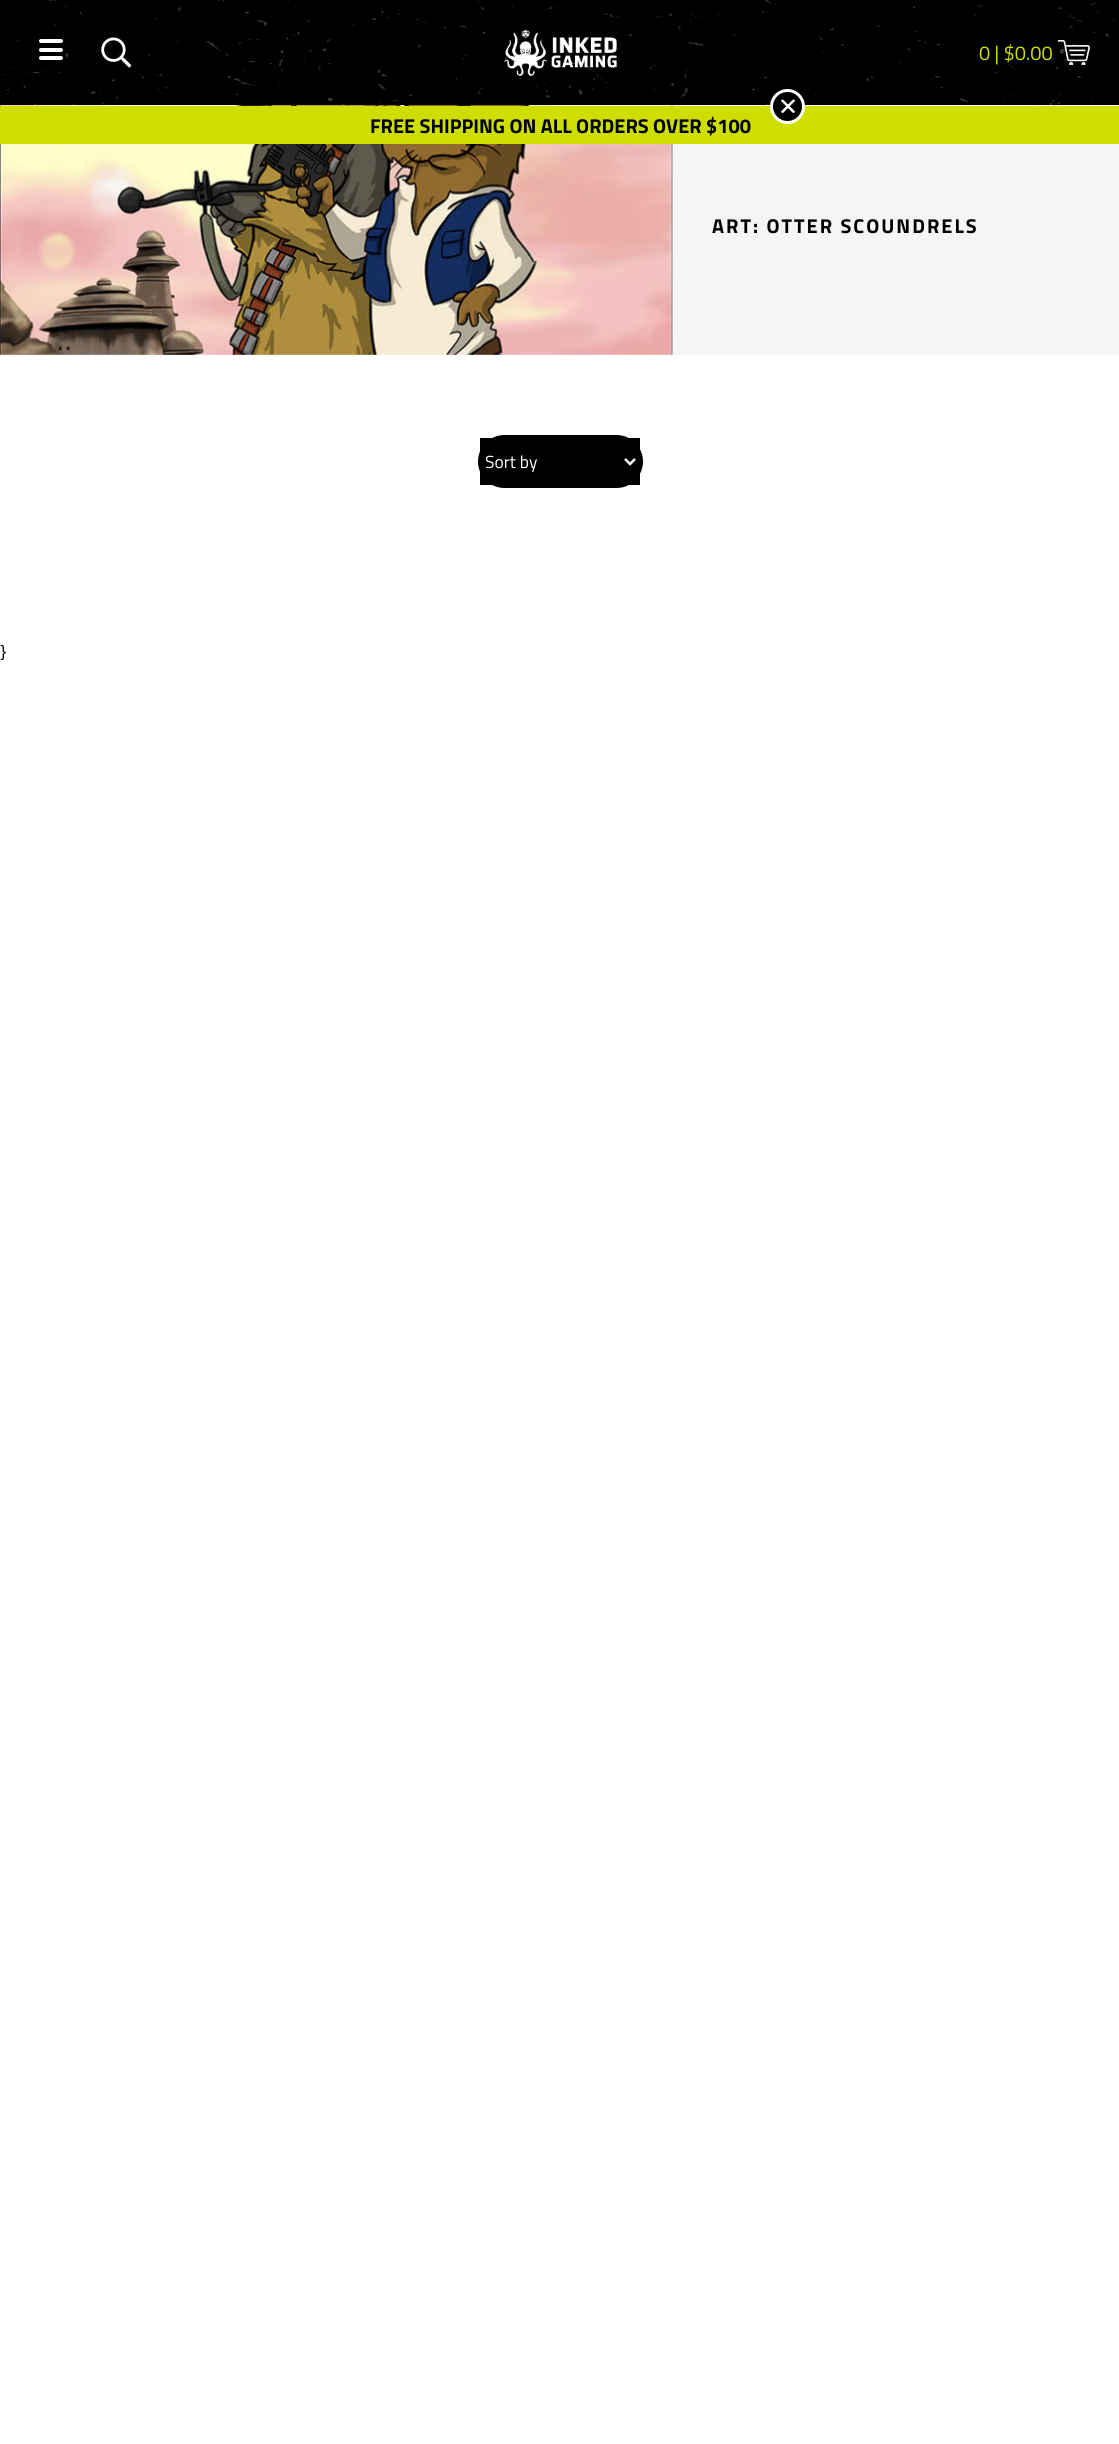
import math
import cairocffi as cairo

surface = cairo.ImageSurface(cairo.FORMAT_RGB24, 1119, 2444)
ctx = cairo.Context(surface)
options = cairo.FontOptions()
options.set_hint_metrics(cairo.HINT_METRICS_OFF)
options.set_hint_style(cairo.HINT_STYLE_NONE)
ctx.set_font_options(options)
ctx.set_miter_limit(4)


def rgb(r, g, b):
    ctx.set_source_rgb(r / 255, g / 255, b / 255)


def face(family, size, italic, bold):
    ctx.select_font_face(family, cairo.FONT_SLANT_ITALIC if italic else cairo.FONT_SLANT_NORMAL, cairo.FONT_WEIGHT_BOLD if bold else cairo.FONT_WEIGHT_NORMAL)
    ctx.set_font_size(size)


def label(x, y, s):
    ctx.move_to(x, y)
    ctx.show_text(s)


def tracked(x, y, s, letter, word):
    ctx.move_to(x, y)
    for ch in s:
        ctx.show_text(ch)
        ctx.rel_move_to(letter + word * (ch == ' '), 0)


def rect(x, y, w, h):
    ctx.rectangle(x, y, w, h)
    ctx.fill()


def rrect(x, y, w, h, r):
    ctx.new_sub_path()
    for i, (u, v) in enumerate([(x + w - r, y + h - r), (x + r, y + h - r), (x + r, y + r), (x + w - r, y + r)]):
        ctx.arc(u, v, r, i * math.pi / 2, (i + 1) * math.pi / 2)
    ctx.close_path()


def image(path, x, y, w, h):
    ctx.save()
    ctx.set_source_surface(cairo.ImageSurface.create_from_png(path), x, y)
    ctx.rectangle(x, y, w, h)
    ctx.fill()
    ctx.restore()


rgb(255, 255, 255)
ctx.paint()
rgb(0, 0, 0)
rect(0, 0, 1119, 105)
image('image0.png', 0, 0, 1119, 105)
rgb(255, 255, 255)
rrect(39, 48, 24, 4, 2)
ctx.fill()
rrect(39, 39, 24, 4, 2)
ctx.fill()
rrect(39, 56, 24, 4, 2)
ctx.fill()
image('image1.png', 101, 37, 31, 31)
image('image2.png', 504, 29, 113, 47)
face('Titillium Web', 20, 0, 0)
rgb(205, 222, 0)
label(979, 60, '0 | $0.00')
image('image3.png', 1058, 40, 32, 25)
rgb(245, 245, 245)
rect(0, 105, 1119, 250)
image('image4.png', 0, 105, 673, 250)
rgb(205, 222, 0)
rect(0, 106, 1119, 38)
rgb(0, 0, 0)
ctx.arc(787.5, 106.5, 16, 0, 2 * math.pi)
ctx.fill_preserve()
rgb(255, 255, 255)
ctx.set_line_width(3)
ctx.stroke()
ctx.new_path()
ctx.move_to(783.5, 100)
ctx.line_to(794.5, 111)
ctx.curve_to(795, 111.5, 795, 112, 794.5, 112.5)
ctx.curve_to(794, 113, 793, 113, 792.5, 112.5)
ctx.line_to(781.5, 101.5)
ctx.curve_to(781, 101, 781, 100.5, 781.5, 100)
ctx.curve_to(782, 99.5, 783, 99.5, 783.5, 100)
ctx.close_path()
ctx.fill()
ctx.new_path()
ctx.move_to(781.5, 111)
ctx.line_to(792.5, 100)
ctx.curve_to(793, 99.5, 794, 99.5, 794.5, 100)
ctx.curve_to(795, 100.5, 795, 101, 794.5, 101.5)
ctx.line_to(783.5, 112.5)
ctx.curve_to(783, 113, 782, 113, 781.5, 112.5)
ctx.curve_to(781, 112, 781, 111.5, 781.5, 111)
ctx.close_path()
ctx.fill()
face('Titillium Web', 20, 0, 1)
rgb(0, 0, 0)
label(370, 133, 'FREE SHIPPING ON ALL ORDERS OVER $100')
tracked(712, 233, 'ART: OTTER SCOUNDRELS', 2, 0)
rrect(479.5, 436.5, 162, 50, 25)
ctx.stroke()
rect(480, 438, 160, 47)
ctx.new_path()
ctx.move_to(625, 459)
ctx.line_to(630, 464)
ctx.line_to(635, 459)
rgb(255, 255, 255)
ctx.set_line_width(2.5)
ctx.stroke()
face('Titillium Web', 17.5, 0, 0)
label(485, 468, 'Sort by')
rgb(0, 0, 0)
label(0, 658, '}')
surface.write_to_png('render.png')
